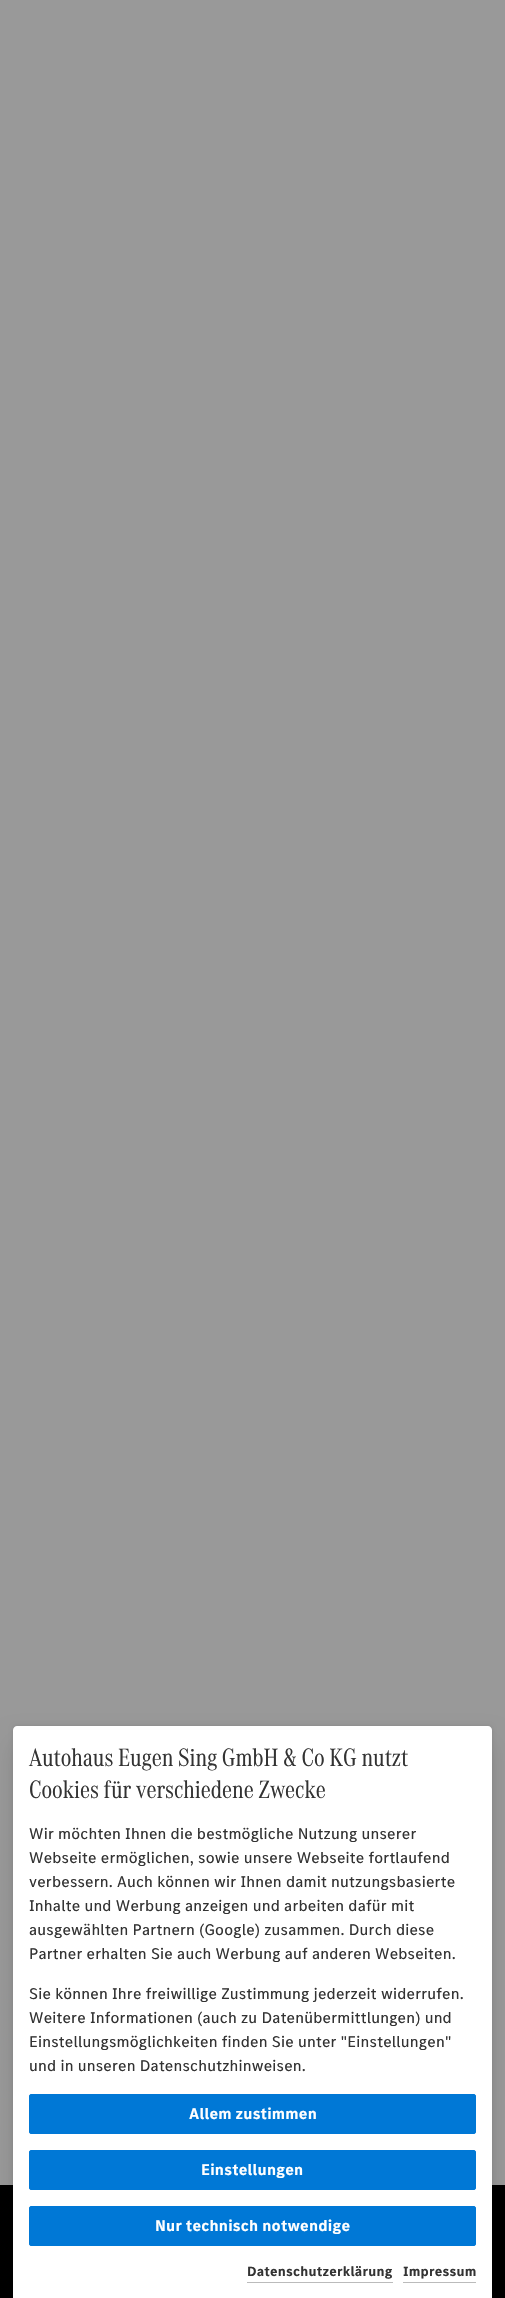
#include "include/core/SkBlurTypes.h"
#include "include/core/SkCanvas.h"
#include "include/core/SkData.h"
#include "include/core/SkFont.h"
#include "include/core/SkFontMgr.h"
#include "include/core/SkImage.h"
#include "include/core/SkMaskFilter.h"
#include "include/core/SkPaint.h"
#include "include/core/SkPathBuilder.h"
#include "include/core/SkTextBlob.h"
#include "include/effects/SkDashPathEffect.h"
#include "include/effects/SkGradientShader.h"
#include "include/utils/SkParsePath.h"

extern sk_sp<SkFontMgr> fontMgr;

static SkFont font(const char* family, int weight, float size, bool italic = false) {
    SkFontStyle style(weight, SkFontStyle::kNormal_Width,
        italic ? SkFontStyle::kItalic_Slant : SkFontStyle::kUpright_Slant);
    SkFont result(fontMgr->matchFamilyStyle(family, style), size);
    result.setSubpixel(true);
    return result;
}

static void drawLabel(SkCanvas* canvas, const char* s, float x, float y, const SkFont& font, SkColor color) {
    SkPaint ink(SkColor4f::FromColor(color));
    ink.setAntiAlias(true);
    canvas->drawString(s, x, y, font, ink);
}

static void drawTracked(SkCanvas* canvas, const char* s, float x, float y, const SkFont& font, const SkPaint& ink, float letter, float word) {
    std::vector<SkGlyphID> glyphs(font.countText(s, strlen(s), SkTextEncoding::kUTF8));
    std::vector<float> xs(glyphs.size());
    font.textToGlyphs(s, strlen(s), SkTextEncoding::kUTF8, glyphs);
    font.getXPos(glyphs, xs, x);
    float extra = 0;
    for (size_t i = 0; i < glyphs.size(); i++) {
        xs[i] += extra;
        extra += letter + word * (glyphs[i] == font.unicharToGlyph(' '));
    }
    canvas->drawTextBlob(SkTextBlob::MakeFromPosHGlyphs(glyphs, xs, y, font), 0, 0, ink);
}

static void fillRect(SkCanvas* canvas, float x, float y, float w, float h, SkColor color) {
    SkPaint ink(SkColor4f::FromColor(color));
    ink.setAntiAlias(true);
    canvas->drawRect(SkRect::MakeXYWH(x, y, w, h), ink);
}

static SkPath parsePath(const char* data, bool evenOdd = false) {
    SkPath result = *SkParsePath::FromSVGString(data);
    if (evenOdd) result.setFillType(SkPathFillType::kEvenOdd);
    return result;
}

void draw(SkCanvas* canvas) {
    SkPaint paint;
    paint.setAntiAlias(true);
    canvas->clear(0xFF999999);
    fillRect(canvas, 0, 2185, 505, 113, 0xFF000000);
    paint.setColor(0x1A000000);
    paint.setMaskFilter(SkMaskFilter::MakeBlur(kNormal_SkBlurStyle, 12));
    canvas->drawRoundRect(SkRect::MakeXYWH(13, 1742, 479, 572), 4, 4, paint);
    paint.setMaskFilter(nullptr);
    paint.setMaskFilter(SkMaskFilter::MakeBlur(kNormal_SkBlurStyle, 2));
    canvas->drawRoundRect(SkRect::MakeXYWH(13, 1726, 479, 572), 4, 4, paint);
    paint.setMaskFilter(nullptr);
    paint.setColor(0xFFFFFFFF);
    canvas->drawPath(parsePath("M17 1726H488C490 1726 492 1728 492 1730V2298H13V1730C13 1728 15 1726 17 1726Z"), paint);
    SkFont font1 = font("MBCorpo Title", 400, 26);
    drawLabel(canvas, "Autohaus Eugen Sing GmbH & Co KG nutzt", 29, 1766, font1, 0xFF333333);
    drawLabel(canvas, "Cookies für verschiedene Zwecke", 29, 1798, font1, 0xFF333333);
    SkFont font2 = font("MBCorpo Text", 400, 16);
    paint.setColor(0xFF333333);
    drawTracked(canvas, "Wir möchten Ihnen die bestmögliche Nutzung unserer", 29, 1839, font2, paint, 0.2f, 0);
    drawTracked(canvas, "Webseite ermöglichen, sowie unsere Webseite fortlaufend", 29, 1863, font2, paint, 0.2f, 0);
    drawTracked(canvas, "verbessern. Auch können wir Ihnen damit nutzungsbasierte", 29, 1887, font2, paint, 0.2f, 0);
    drawTracked(canvas, "Inhalte und Werbung anzeigen und arbeiten dafür mit", 29, 1911, font2, paint, 0.2f, 0);
    drawTracked(canvas, "ausgewählten Partnern (Google) zusammen. Durch diese", 29, 1935, font2, paint, 0.2f, 0);
    drawTracked(canvas, "Partner erhalten Sie auch Werbung auf anderen Webseiten.", 29, 1959, font2, paint, 0.2f, 0);
    drawTracked(canvas, "Sie können Ihre freiwillige Zustimmung jederzeit widerrufen.", 29, 1999, font2, paint, 0.2f, 0);
    drawTracked(canvas, "Weitere Informationen (auch zu Datenübermittlungen) und", 29, 2023, font2, paint, 0.2f, 0);
    drawTracked(canvas, "Einstellungsmöglichkeiten finden Sie unter \"Einstellungen\"", 29, 2047, font2, paint, 0.2f, 0);
    drawTracked(canvas, "und in unseren Datenschutzhinweisen.", 29, 2071, font2, paint, 0.2f, 0);
    paint.setColor(0xFF0078D6);
    canvas->drawRoundRect(SkRect::MakeXYWH(29.5f, 2094.5f, 446, 39), 1.5f, 1.5f, paint);
    paint.setStroke(true);
    paint.setStrokeWidth(1);
    canvas->drawRoundRect(SkRect::MakeXYWH(29.5f, 2094.5f, 446, 39), 1.5f, 1.5f, paint);
    SkFont font3 = font("MBCorpo Text", 700, 16);
    paint.setStroke(false);
    paint.setColor(0xFFFFFFFF);
    drawTracked(canvas, "Allem zustimmen", 189, 2119, font3, paint, 0.2f, 0);
    paint.setColor(0xFF0078D6);
    canvas->drawRoundRect(SkRect::MakeXYWH(29.5f, 2150.5f, 446, 39), 1.5f, 1.5f, paint);
    paint.setStroke(true);
    canvas->drawRoundRect(SkRect::MakeXYWH(29.5f, 2150.5f, 446, 39), 1.5f, 1.5f, paint);
    paint.setStroke(false);
    paint.setColor(0xFFFFFFFF);
    drawTracked(canvas, "Einstellungen", 201, 2175, font3, paint, 0.2f, 0);
    paint.setColor(0xFF0078D6);
    canvas->drawRoundRect(SkRect::MakeXYWH(29.5f, 2206.5f, 446, 39), 1.5f, 1.5f, paint);
    paint.setStroke(true);
    canvas->drawRoundRect(SkRect::MakeXYWH(29.5f, 2206.5f, 446, 39), 1.5f, 1.5f, paint);
    paint.setStroke(false);
    paint.setColor(0xFFFFFFFF);
    drawTracked(canvas, "Nur technisch notwendige", 155, 2231, font3, paint, 0.2f, 0);
    fillRect(canvas, 247, 2282, 146, 1, 0xFFBBBBBB);
    SkFont font4 = font("MBCorpo Text", 700, 14);
    paint.setColor(0xFF333333);
    drawTracked(canvas, "Datenschutzerklärung", 247, 2276, font4, paint, 0.2f, 0);
    fillRect(canvas, 403, 2282, 73, 1, 0xFFBBBBBB);
    drawTracked(canvas, "Impressum", 403, 2276, font4, paint, 0.2f, 0);
}
